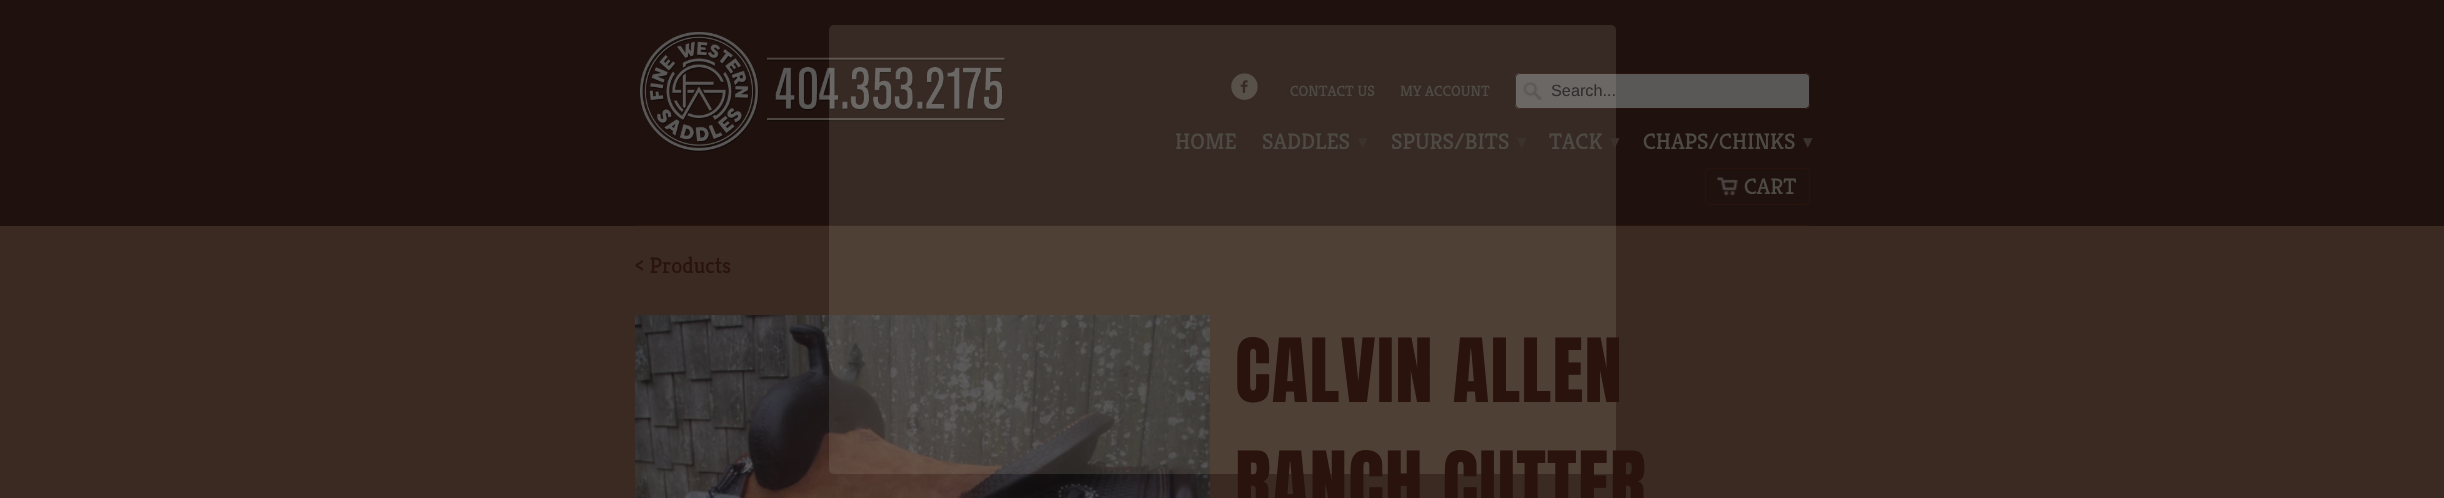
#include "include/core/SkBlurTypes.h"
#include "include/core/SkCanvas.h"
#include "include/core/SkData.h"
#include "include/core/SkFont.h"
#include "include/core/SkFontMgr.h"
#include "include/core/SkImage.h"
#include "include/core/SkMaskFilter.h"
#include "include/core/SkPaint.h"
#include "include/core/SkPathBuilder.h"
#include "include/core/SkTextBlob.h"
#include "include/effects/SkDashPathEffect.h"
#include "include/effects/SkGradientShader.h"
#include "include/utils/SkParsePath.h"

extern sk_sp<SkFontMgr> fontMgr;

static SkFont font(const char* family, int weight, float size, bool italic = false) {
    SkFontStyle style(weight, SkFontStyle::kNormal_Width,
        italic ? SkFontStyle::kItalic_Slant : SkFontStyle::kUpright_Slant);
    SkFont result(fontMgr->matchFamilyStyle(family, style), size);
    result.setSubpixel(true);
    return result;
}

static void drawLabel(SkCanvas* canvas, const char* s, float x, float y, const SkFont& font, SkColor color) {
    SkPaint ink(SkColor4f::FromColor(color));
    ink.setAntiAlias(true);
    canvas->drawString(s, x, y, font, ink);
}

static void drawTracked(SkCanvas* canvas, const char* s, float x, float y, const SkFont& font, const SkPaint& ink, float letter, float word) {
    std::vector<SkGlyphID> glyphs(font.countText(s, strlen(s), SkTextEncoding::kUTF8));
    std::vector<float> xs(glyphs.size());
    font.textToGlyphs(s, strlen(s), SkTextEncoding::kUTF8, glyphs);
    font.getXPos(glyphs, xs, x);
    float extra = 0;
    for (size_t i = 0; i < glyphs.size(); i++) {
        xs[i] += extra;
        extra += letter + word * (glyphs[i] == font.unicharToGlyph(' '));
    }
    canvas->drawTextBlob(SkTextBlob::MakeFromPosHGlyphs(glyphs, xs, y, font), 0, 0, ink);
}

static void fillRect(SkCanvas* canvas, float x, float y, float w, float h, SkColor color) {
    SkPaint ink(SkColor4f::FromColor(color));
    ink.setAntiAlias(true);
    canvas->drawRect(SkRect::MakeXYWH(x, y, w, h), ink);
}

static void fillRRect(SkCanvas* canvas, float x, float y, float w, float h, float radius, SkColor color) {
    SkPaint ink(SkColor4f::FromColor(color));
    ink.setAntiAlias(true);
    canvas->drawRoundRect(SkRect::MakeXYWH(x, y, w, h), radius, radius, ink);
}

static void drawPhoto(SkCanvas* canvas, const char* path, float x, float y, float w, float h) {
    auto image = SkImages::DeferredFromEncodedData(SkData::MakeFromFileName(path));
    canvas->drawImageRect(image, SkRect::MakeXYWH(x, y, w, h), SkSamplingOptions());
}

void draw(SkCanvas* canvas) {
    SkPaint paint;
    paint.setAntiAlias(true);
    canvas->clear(0xFF3A2A21);
    fillRect(canvas, 0, 0, 2444, 226, 0xFF1F110D);
    fillRect(canvas, 635, 225, 1175, 1, 0xFF29130C);
    drawPhoto(canvas, "assets/img1.png", 640, 32, 366, 121);
    drawPhoto(canvas, "assets/img2.png", 1231, 73, 27, 27);
    fillRRect(canvas, 1515, 73, 295, 36, 5, 0xFF5A5757);
    drawPhoto(canvas, "assets/img3.png", 1523, 82, 19, 18);
    paint.setStroke(true);
    paint.setStrokeWidth(1);
    paint.setColor(0xFF29130C);
    canvas->drawRoundRect(SkRect::MakeXYWH(1515.5f, 73.5f, 294, 35), 4.5f, 4.5f, paint);
    drawPhoto(canvas, "assets/img5.png", 635, 315, 575, 183);
    fillRRect(canvas, 829, 25, 787, 449, 5, 0x21D5D0BD);
    SkFont font1 = font("Kreon", 400, 15);
    drawLabel(canvas, "CONTACT US", 1290, 96, font1, 0xFF4D4943);
    drawLabel(canvas, "MY ACCOUNT", 1400, 96, font1, 0xFF4D4943);
    SkFont font2 = font("Liberation Sans", 400, 16.25f);
    drawLabel(canvas, "Search...", 1551, 96, font2, 0xFF2F2D2D);
    SkFont font3 = font("Kreon", 400, 22.5f);
    drawLabel(canvas, "HOME", 1175, 149, font3, 0xFF4D4943);
    drawLabel(canvas, "SADDLES", 1262, 149, font3, 0xFF4D4943);
    SkFont font4 = font("DejaVu Sans", 400, 19);
    drawLabel(canvas, "▾", 1358, 148, font4, 0xFF3B322D);
    drawLabel(canvas, "SPURS/BITS", 1391, 149, font3, 0xFF4D4943);
    drawLabel(canvas, "▾", 1517, 148, font4, 0xFF3B322D);
    drawLabel(canvas, "TACK", 1549, 149, font3, 0xFF4D4943);
    drawLabel(canvas, "▾", 1610, 148, font4, 0xFF3B322D);
    drawLabel(canvas, "CHAPS/CHINKS", 1643, 149, font3, 0xFF4D4943);
    drawLabel(canvas, "▾", 1803, 148, font4, 0xFF3B322D);
    drawPhoto(canvas, "assets/img4.png", 1717, 177, 21, 19);
    canvas->drawRoundRect(SkRect::MakeXYWH(1705.5f, 168.5f, 104, 36), 4.5f, 4.5f, paint);
    drawLabel(canvas, "CART", 1744, 194, font3, 0xFF4D4943);
    drawLabel(canvas, "< Products", 635, 273, font3, 0xFF29130C);
    SkFont font5 = font("Anton", 400, 75);
    paint.setStroke(false);
    drawTracked(canvas, "CALVIN ALLEN", 1235, 402, font5, paint, 1.25f, 0);
    drawTracked(canvas, "RANCH CUTTER", 1235, 515, font5, paint, 1.25f, 0);
}
